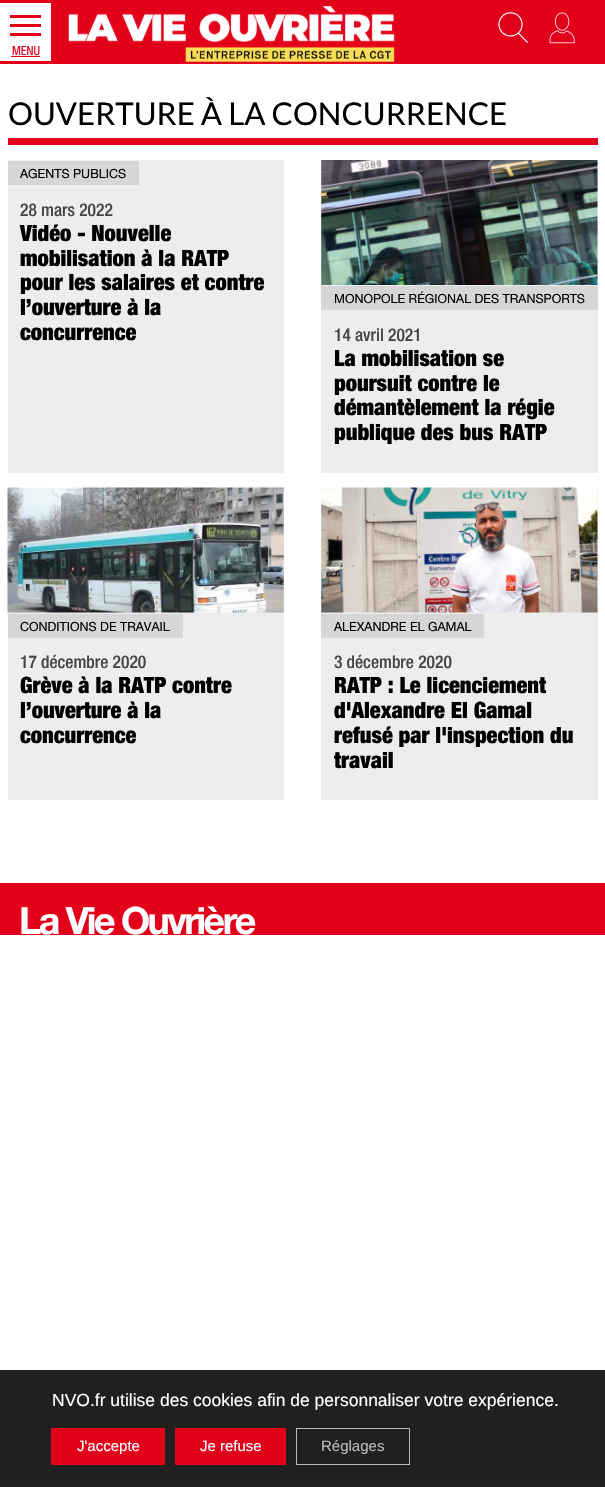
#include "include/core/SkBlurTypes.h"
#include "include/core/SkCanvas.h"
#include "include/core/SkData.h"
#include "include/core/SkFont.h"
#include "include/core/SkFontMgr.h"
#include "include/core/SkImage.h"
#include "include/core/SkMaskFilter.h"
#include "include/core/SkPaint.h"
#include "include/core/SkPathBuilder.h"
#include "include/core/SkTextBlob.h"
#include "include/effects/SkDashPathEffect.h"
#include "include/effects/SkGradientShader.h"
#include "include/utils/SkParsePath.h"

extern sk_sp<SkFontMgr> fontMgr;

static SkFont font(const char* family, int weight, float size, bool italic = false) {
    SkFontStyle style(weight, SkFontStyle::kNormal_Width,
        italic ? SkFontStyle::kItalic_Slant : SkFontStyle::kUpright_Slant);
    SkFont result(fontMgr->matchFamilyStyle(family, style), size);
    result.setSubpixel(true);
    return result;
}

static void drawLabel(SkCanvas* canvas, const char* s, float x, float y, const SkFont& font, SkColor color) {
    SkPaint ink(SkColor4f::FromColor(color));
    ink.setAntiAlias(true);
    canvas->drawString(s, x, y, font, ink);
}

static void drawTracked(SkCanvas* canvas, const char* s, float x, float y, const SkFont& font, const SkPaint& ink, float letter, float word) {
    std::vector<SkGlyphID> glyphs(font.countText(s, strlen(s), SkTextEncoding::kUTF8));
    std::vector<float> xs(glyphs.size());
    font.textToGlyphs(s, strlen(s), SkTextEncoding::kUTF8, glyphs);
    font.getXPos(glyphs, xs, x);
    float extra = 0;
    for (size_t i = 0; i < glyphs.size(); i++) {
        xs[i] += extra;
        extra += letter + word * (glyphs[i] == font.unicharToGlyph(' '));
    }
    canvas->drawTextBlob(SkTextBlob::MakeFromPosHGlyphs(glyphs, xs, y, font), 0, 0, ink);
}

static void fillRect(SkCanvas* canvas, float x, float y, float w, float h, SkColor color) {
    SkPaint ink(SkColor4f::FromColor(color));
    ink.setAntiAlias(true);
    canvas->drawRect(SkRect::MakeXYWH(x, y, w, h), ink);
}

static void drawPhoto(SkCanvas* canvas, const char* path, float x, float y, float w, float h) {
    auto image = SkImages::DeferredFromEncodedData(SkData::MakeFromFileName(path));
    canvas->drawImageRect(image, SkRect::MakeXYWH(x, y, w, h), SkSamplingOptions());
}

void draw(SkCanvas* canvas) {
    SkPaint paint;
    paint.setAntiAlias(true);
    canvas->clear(0xFFFFFFFF);
    fillRect(canvas, 51, 0, 554, 64, 0xFFE2001A);
    fillRect(canvas, 0, 0, 51, 3, 0xFFE2001A);
    fillRect(canvas, 0, 61, 51, 3, 0xFFE2001A);
    fillRect(canvas, 10, 15, 31, 3, 0xFFE2001A);
    fillRect(canvas, 10, 24, 31, 3, 0xFFE2001A);
    fillRect(canvas, 10, 33, 31, 3, 0xFFE2001A);
    SkFont font1 = font("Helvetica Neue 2", 400, 12.5f);
    drawLabel(canvas, "MENU", 12, 55, font1, 0xFFE2001A);
    fillRect(canvas, 11, 56, 29, 1, 0xFFE2001A);
    drawPhoto(canvas, "assets/img1.png", 68, 5, 328, 57);
    drawPhoto(canvas, "assets/img2.png", 498, 12, 30, 31);
    drawPhoto(canvas, "assets/img3.png", 549, 12, 26, 32);
    fillRect(canvas, 8, 138, 590, 7, 0xFFE2001A);
    SkFont font2 = font("Lato", 400, 31.25f);
    drawLabel(canvas, "OUVERTURE À LA CONCURRENCE", 8, 125, font2, 0xFF000000);
    fillRect(canvas, 8, 160, 276, 313, 0xFFEEEDED);
    fillRect(canvas, 8, 161, 131, 24, 0xFFD6D6D6);
    SkFont font3 = font("Helvetica Neue", 400, 12.5f);
    drawLabel(canvas, "AGENTS PUBLICS", 20, 178, font3, 0xFF000000);
    SkFont font4 = font("Helvetica Neue", 500, 17.5f);
    drawLabel(canvas, "28 mars 2022", 20, 216, font4, 0xFF474545);
    SkFont font5 = font("Helvetica Neue", 900, 22.5f);
    drawLabel(canvas, "Vidéo - Nouvelle", 20, 241, font5, 0xFF000000);
    drawLabel(canvas, "mobilisation à la RATP", 20, 266, font5, 0xFF000000);
    drawLabel(canvas, "pour les salaires et contre", 20, 290, font5, 0xFF000000);
    drawLabel(canvas, "l’ouverture à la", 20, 315, font5, 0xFF000000);
    drawLabel(canvas, "concurrence", 20, 340, font5, 0xFF000000);
    fillRect(canvas, 321, 160, 277, 313, 0xFFEEEDED);
    drawPhoto(canvas, "assets/img4.png", 321, 160, 277, 125);
    fillRect(canvas, 321, 286, 277, 24, 0xFFD6D6D6);
    drawLabel(canvas, "MONOPOLE RÉGIONAL DES TRANSPORTS", 334, 303, font3, 0xFF000000);
    drawLabel(canvas, "14 avril 2021", 334, 341, font4, 0xFF474545);
    drawLabel(canvas, "La mobilisation se", 334, 366, font5, 0xFF000000);
    drawLabel(canvas, "poursuit contre le", 334, 391, font5, 0xFF000000);
    drawLabel(canvas, "démantèlement la régie", 334, 415, font5, 0xFF000000);
    drawLabel(canvas, "publique des bus RATP", 334, 440, font5, 0xFF000000);
    fillRect(canvas, 8, 488, 276, 312, 0xFFEEEDED);
    drawPhoto(canvas, "assets/img5.png", 7, 487, 277, 126);
    fillRect(canvas, 8, 614, 175, 24, 0xFFD6D6D6);
    drawLabel(canvas, "CONDITIONS DE TRAVAIL", 20, 631, font3, 0xFF000000);
    drawLabel(canvas, "17 décembre 2020", 20, 668, font4, 0xFF474545);
    drawLabel(canvas, "Grève à la RATP contre", 20, 693, font5, 0xFF000000);
    drawLabel(canvas, "l’ouverture à la", 20, 718, font5, 0xFF000000);
    drawLabel(canvas, "concurrence", 20, 743, font5, 0xFF000000);
    fillRect(canvas, 321, 488, 277, 312, 0xFFEEEDED);
    drawPhoto(canvas, "assets/img6.png", 321, 487, 277, 126);
    fillRect(canvas, 321, 614, 163, 24, 0xFFD6D6D6);
    drawLabel(canvas, "ALEXANDRE EL GAMAL", 334, 631, font3, 0xFF000000);
    drawLabel(canvas, "3 décembre 2020", 334, 668, font4, 0xFF474545);
    drawLabel(canvas, "RATP : Le licenciement", 334, 693, font5, 0xFF000000);
    drawLabel(canvas, "d'Alexandre El Gamal", 334, 718, font5, 0xFF000000);
    drawLabel(canvas, "refusé par l'inspection du", 334, 743, font5, 0xFF000000);
    drawLabel(canvas, "travail", 334, 768, font5, 0xFF000000);
    fillRect(canvas, 0, 883, 605, 52, 0xFFE2001A);
    SkFont font6 = font("Helvetica Neue", 700, 37.5f);
    paint.setColor(0xFFFFFFFF);
    drawTracked(canvas, "La Vie Ouvrière", 19, 934, font6, paint, -2.5f, 0);
    fillRect(canvas, 0, 1370, 605, 117, 0xFF202020);
    SkFont font7 = font("Liberation Sans", 400, 17.5f);
    drawLabel(canvas, "NVO.fr utilise des cookies afin de personnaliser votre expérience.", 52, 1406, font7, 0xFFFFFFFF);
    fillRect(canvas, 51, 1428, 114, 37, 0xFFE2001A);
    SkFont font8 = font("Liberation Sans", 400, 15);
    drawLabel(canvas, "J'accepte", 77, 1451, font8, 0xFFFFFFFF);
    fillRect(canvas, 175, 1428, 111, 37, 0xFFE2001A);
    drawLabel(canvas, "Je refuse", 200, 1451, font8, 0xFFFFFFFF);
    paint.setStroke(true);
    paint.setStrokeWidth(1);
    paint.setColor(0xFFBCBCBC);
    canvas->drawRect(SkRect::MakeXYWH(296.5f, 1428.5f, 113, 36), paint);
    drawLabel(canvas, "Réglages", 321, 1451, font8, 0xFFBCBCBC);
}
